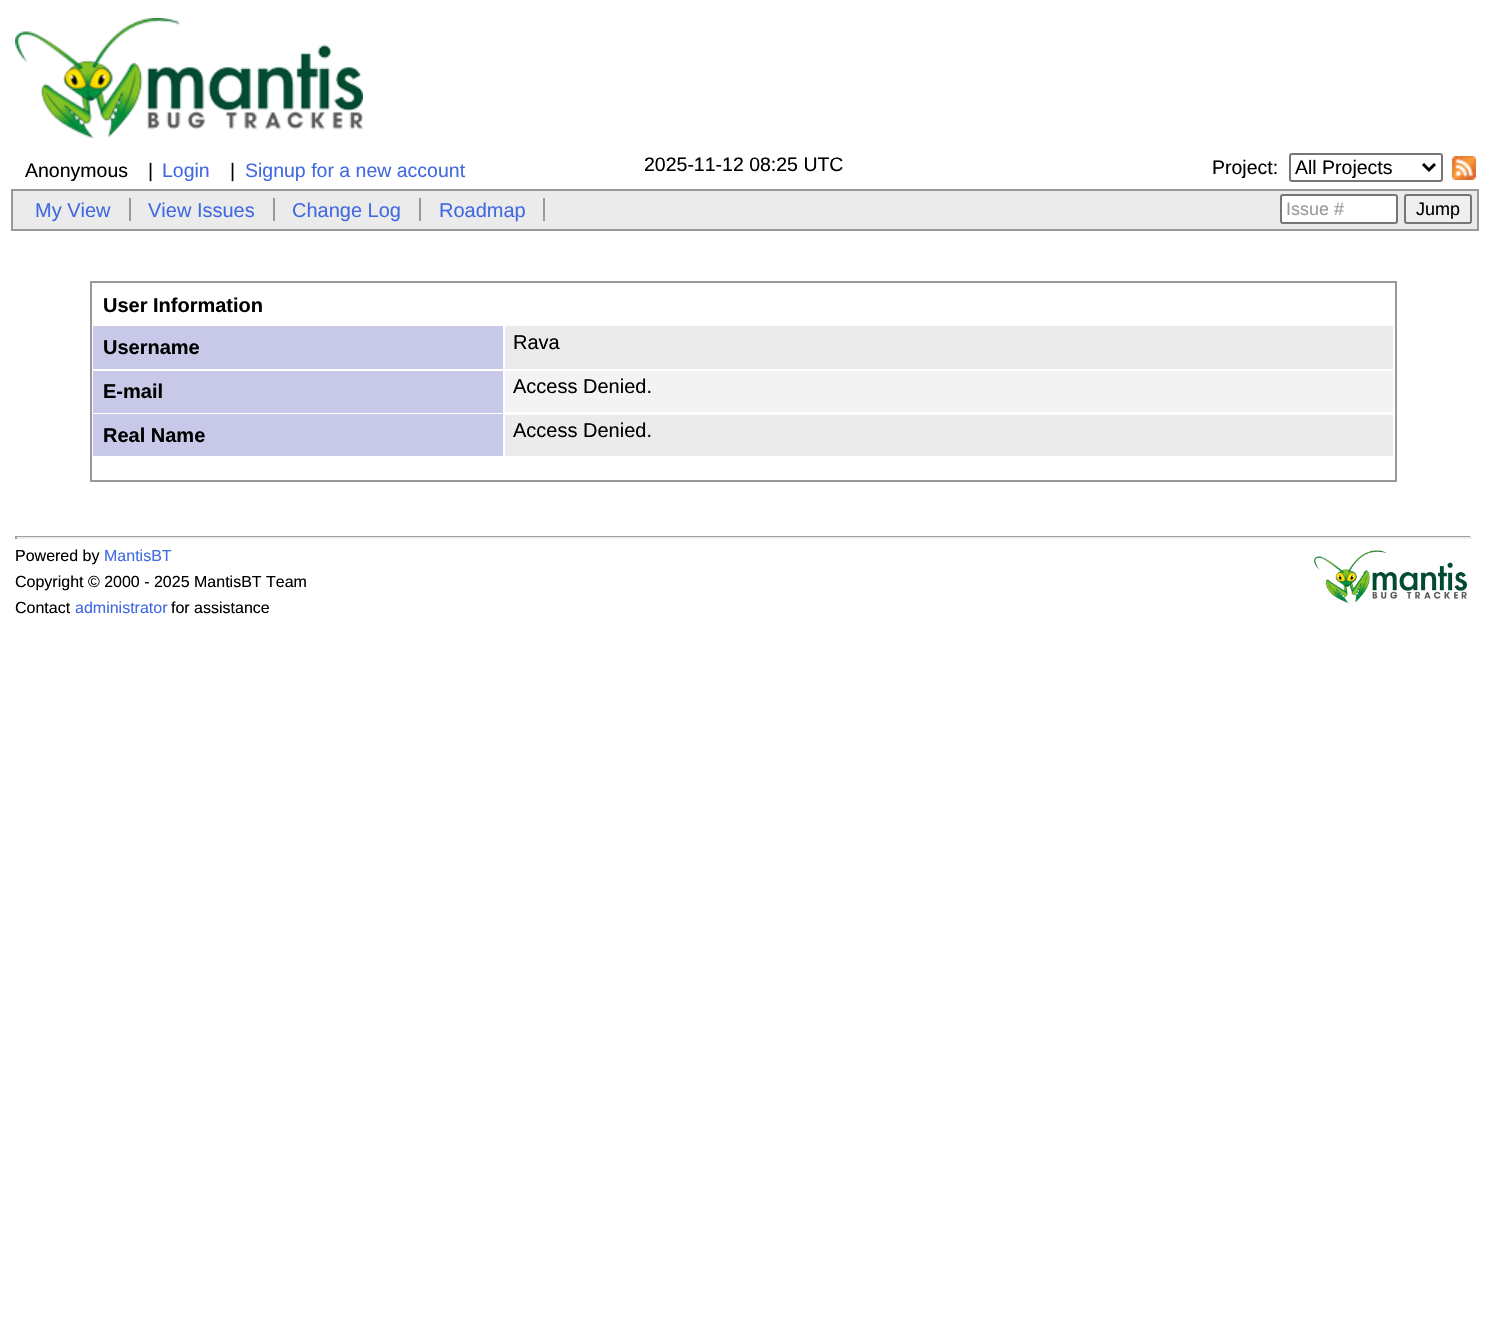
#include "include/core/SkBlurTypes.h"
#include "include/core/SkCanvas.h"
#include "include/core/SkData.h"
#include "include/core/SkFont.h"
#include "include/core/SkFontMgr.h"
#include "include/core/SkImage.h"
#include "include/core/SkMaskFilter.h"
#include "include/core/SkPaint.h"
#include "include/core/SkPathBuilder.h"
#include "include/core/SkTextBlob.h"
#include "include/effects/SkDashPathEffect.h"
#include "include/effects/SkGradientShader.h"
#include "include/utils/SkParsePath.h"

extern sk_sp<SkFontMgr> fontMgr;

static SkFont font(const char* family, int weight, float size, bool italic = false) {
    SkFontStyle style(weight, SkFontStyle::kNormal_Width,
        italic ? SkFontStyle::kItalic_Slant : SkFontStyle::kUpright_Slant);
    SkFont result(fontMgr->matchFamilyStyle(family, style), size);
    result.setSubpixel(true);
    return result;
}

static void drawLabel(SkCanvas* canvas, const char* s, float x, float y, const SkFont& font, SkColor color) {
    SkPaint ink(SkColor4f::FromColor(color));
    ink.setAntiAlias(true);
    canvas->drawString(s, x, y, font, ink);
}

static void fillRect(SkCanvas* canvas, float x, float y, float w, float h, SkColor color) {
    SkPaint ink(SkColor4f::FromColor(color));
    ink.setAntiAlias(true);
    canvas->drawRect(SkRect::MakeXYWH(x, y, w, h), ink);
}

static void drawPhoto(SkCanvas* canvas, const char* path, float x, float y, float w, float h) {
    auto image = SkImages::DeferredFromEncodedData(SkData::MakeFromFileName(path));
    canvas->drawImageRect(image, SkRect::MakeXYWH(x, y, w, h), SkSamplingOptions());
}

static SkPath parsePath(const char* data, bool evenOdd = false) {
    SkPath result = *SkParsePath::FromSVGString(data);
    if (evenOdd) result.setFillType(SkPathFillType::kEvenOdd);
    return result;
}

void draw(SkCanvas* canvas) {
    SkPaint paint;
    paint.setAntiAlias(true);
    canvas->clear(0xFFFFFFFF);
    drawPhoto(canvas, "assets/img1.png", 15, 18, 348, 120);
    SkFont font1 = font("Liberation Sans", 400, 19.5f);
    drawLabel(canvas, "Anonymous", 25, 177, font1, 0xFF000000);
    drawLabel(canvas, "|", 148, 177, font1, 0xFF000000);
    drawLabel(canvas, "Login", 162, 177, font1, 0xFF4169E1);
    drawLabel(canvas, "|", 230, 177, font1, 0xFF000000);
    drawLabel(canvas, "Signup for a new account", 245, 177, font1, 0xFF4169E1);
    drawLabel(canvas, "2025-11-12 08:25 UTC", 644, 171, font1, 0xFF000000);
    drawLabel(canvas, "Project:", 1212, 174, font1, 0xFF000000);
    paint.setStroke(true);
    paint.setStrokeWidth(2);
    paint.setColor(0xFF767676);
    canvas->drawRoundRect(SkRect::MakeXYWH(1290, 154, 152, 27), 2, 2, paint);
    paint.setStrokeWidth(3);
    paint.setColor(0xFF000000);
    canvas->drawPath(parsePath("M1423 164L1429 170L1435 164"), paint);
    drawLabel(canvas, "All Projects", 1295, 174, font1, 0xFF000000);
    drawPhoto(canvas, "assets/img2.png", 1452, 156, 24, 24);
    paint.setStroke(false);
    paint.setColor(0xFFEBEBEB);
    canvas->drawRect(SkRect::MakeXYWH(12, 190, 1466, 40), paint);
    paint.setStroke(true);
    paint.setStrokeWidth(2);
    paint.setColor(0xFF999999);
    canvas->drawRect(SkRect::MakeXYWH(12, 190, 1466, 40), paint);
    SkFont font2 = font("Liberation Sans", 400, 20);
    drawLabel(canvas, "My View", 35, 217, font2, 0xFF4169E1);
    fillRect(canvas, 129, 198, 2, 23, 0xFF999999);
    drawLabel(canvas, "View Issues", 148, 217, font2, 0xFF4169E1);
    fillRect(canvas, 273, 198, 2, 23, 0xFF999999);
    drawLabel(canvas, "Change Log", 292, 217, font2, 0xFF4169E1);
    fillRect(canvas, 419, 198, 2, 23, 0xFF999999);
    drawLabel(canvas, "Roadmap", 439, 217, font2, 0xFF4169E1);
    fillRect(canvas, 543, 198, 2, 23, 0xFF999999);
    paint.setStroke(false);
    paint.setColor(0xFFFFFFFF);
    canvas->drawRoundRect(SkRect::MakeXYWH(1281, 195, 116, 28), 2, 2, paint);
    paint.setStroke(true);
    paint.setColor(0xFF767676);
    canvas->drawRoundRect(SkRect::MakeXYWH(1281, 195, 116, 28), 2, 2, paint);
    SkFont font3 = font("Liberation Sans", 400, 18);
    drawLabel(canvas, "Issue #", 1286, 215, font3, 0xFF999999);
    paint.setStroke(false);
    paint.setColor(0xFFEFEFEF);
    canvas->drawRoundRect(SkRect::MakeXYWH(1405, 195, 66, 28), 2, 2, paint);
    paint.setStroke(true);
    paint.setColor(0xFF767676);
    canvas->drawRoundRect(SkRect::MakeXYWH(1405, 195, 66, 28), 2, 2, paint);
    drawLabel(canvas, "Jump", 1416, 215, font3, 0xFF000000);
    paint.setColor(0xFF999999);
    canvas->drawRect(SkRect::MakeXYWH(91, 282, 1305, 199), paint);
    SkFont font4 = font("Liberation Sans", 700, 20);
    drawLabel(canvas, "User Information", 103, 312, font4, 0xFF000000);
    fillRect(canvas, 505, 326, 888, 43, 0xFFEBEBEB);
    fillRect(canvas, 93, 326, 410, 43, 0xFFC8C8E8);
    drawLabel(canvas, "Rava", 513, 349, font2, 0xFF000000);
    drawLabel(canvas, "Username", 103, 354, font4, 0xFF000000);
    fillRect(canvas, 505, 371, 888, 41, 0xFFF3F3F3);
    fillRect(canvas, 93, 371, 410, 42, 0xFFC8C8E8);
    drawLabel(canvas, "Access Denied.", 513, 393, font2, 0xFF000000);
    drawLabel(canvas, "E-mail", 103, 398, font4, 0xFF000000);
    fillRect(canvas, 505, 415, 888, 41, 0xFFEBEBEB);
    fillRect(canvas, 93, 414, 410, 42, 0xFFC8C8E8);
    drawLabel(canvas, "Access Denied.", 513, 437, font2, 0xFF000000);
    drawLabel(canvas, "Real Name", 103, 442, font4, 0xFF000000);
    fillRect(canvas, 15, 536, 1457, 1, 0xFF9F9F9F);
    fillRect(canvas, 1470, 536, 2, 3, 0xFFEEEEEE);
    fillRect(canvas, 15, 537, 1457, 2, 0xFFEEEEEE);
    fillRect(canvas, 15, 536, 2, 3, 0xFF9F9F9F);
    SkFont font5 = font("Liberation Sans", 400, 16);
    drawLabel(canvas, "Powered by", 15, 561, font5, 0xFF000000);
    drawLabel(canvas, "MantisBT", 104, 561, font5, 0xFF4169E1);
    drawLabel(canvas, "Copyright © 2000 - 2025 MantisBT Team", 15, 587, font5, 0xFF000000);
    drawPhoto(canvas, "assets/img3.png", 1314, 550, 153, 53);
    drawLabel(canvas, "Contact", 15, 613, font5, 0xFF000000);
    drawLabel(canvas, "administrator", 75, 613, font5, 0xFF4169E1);
    drawLabel(canvas, "for assistance", 171, 613, font5, 0xFF000000);
}
